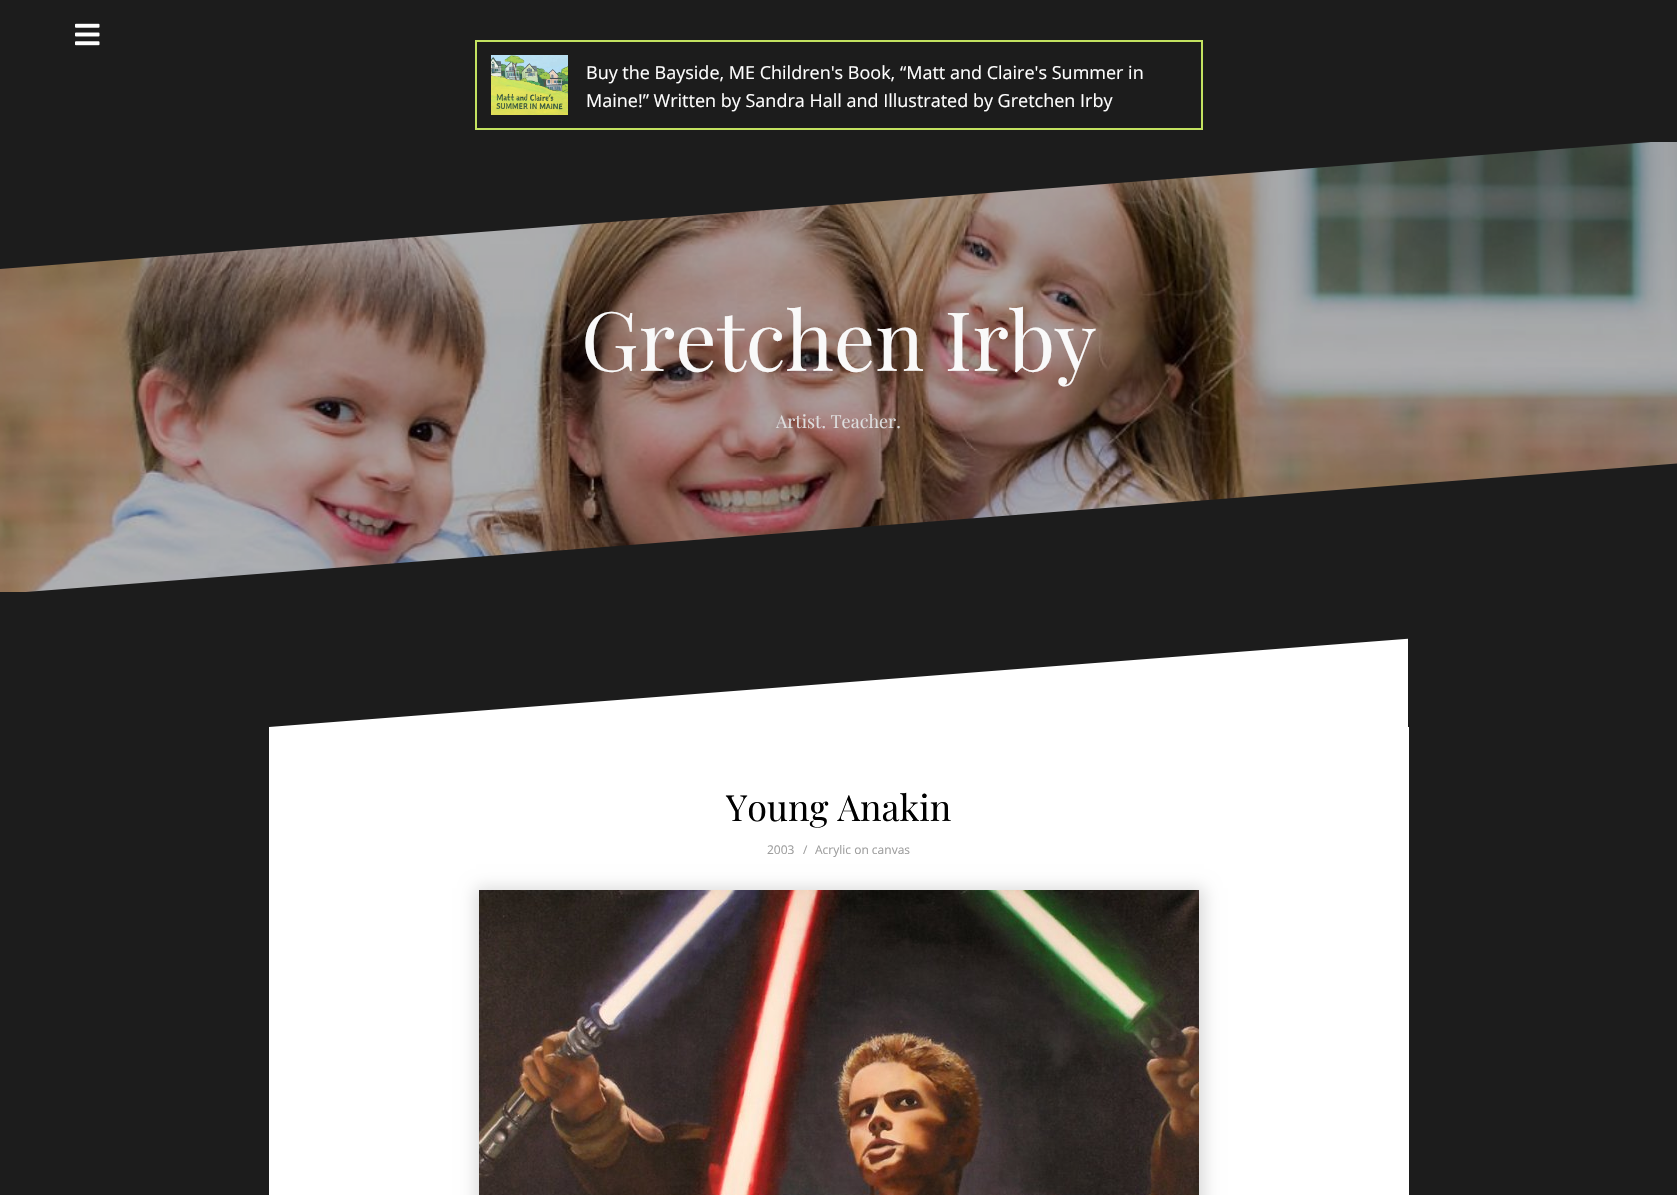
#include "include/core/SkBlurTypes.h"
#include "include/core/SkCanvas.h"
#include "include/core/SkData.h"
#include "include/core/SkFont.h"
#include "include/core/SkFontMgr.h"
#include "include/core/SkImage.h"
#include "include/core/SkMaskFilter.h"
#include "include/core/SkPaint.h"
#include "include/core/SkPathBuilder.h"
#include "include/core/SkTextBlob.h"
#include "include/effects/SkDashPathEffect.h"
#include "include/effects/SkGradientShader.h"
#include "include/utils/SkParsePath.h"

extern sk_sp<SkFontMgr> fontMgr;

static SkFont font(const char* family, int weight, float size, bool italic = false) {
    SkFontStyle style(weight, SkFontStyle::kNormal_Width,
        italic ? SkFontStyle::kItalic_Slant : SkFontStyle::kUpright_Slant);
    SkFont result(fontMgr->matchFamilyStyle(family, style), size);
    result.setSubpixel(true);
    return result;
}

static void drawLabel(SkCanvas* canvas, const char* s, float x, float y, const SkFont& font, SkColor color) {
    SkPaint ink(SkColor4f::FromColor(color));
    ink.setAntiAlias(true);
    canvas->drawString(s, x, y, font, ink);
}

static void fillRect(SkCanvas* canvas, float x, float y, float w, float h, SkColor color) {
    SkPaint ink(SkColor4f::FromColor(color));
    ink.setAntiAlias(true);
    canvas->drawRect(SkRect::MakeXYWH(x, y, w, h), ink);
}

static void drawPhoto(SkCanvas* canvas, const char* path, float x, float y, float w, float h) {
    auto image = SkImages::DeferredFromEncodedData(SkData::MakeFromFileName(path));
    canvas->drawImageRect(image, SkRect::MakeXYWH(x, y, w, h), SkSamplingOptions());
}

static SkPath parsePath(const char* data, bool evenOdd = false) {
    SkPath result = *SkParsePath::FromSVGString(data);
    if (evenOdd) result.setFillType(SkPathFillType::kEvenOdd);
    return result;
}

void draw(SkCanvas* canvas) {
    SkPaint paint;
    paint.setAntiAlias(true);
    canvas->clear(0xFF1C1C1C);
    drawPhoto(canvas, "assets/img1.png", 75, 23, 25, 23);
    paint.setStroke(true);
    paint.setStrokeWidth(2);
    paint.setColor(0xFFC3E260);
    canvas->drawRect(SkRect::MakeXYWH(476, 41, 726, 88), paint);
    drawPhoto(canvas, "assets/img2.png", 491, 55, 77, 60);
    SkFont font1 = font("Open Sans", 400, 18);
    drawLabel(canvas, "Buy the Bayside, ME Children's Book, “Matt and Claire's Summer in", 586, 79, font1, 0xFFFFFFFF);
    drawLabel(canvas, "Maine!” Written by Sandra Hall and Illustrated by Gretchen Irby", 586, 107, font1, 0xFFFFFFFF);
    drawPhoto(canvas, "assets/img3.png", 0, 142, 1677, 450);
    paint.setStroke(false);
    paint.setColor(0xFF1C1C1C);
    canvas->drawPath(parsePath("M0 269V140H1677"), paint);
    SkFont font2 = font("Playfair Display", 400, 82);
    drawLabel(canvas, "Gretchen Irby", 581, 371, font2, 0xFFF9F9F9);
    SkFont font3 = font("Playfair Display", 400, 18);
    drawLabel(canvas, "Artist. Teacher.", 776, 428, font3, 0xFFDDDDDD);
    canvas->drawPath(parsePath("M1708 461V594H0"), paint);
    canvas->save();
    canvas->clipRect(SkRect::MakeXYWH(269, 637, 1139, 91));
    paint.setColor(0xFFFFFFFF);
    canvas->drawPath(parsePath("M1430 637V727H269"), paint);
    canvas->restore();
    fillRect(canvas, 269, 727, 1140, 468, 0xFFFFFFFF);
    SkFont font4 = font("Playfair Display", 400, 36);
    drawLabel(canvas, "Young Anakin", 726, 821, font4, 0xFF000000);
    SkFont font5 = font("Open Sans", 400, 12);
    drawLabel(canvas, "2003", 767, 854, font5, 0xFF9D9D9D);
    drawLabel(canvas, "/", 803, 854, font5, 0xFF9D9D9D);
    drawLabel(canvas, "Acrylic on canvas", 815, 854, font5, 0xFF9D9D9D);
    paint.setColor(0x26000000);
    paint.setMaskFilter(SkMaskFilter::MakeBlur(kNormal_SkBlurStyle, 8));
    canvas->drawRect(SkRect::MakeXYWH(476, 888, 728, 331), paint);
    paint.setMaskFilter(nullptr);
    drawPhoto(canvas, "assets/img4.png", 479, 890, 720, 305);
}
